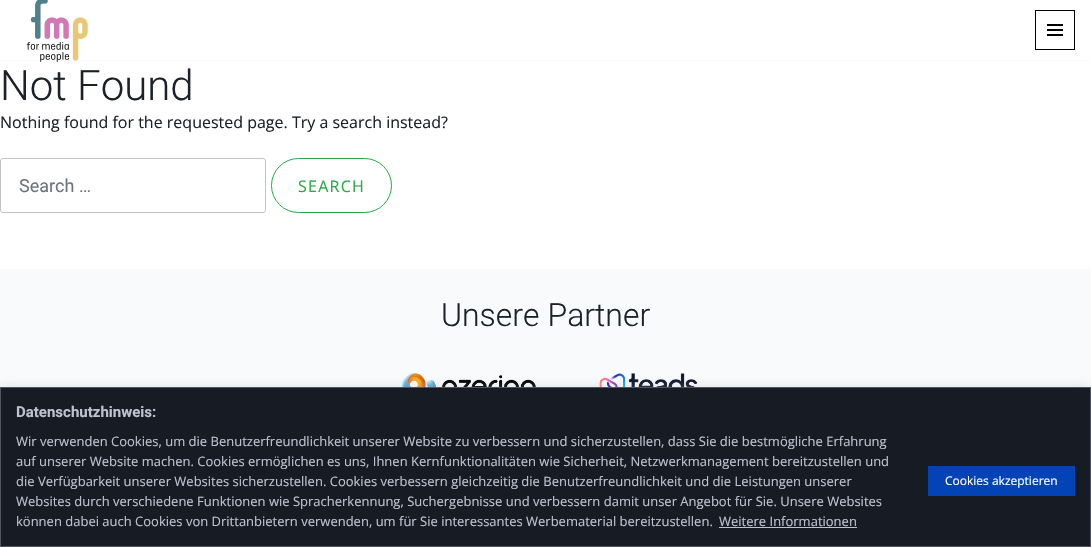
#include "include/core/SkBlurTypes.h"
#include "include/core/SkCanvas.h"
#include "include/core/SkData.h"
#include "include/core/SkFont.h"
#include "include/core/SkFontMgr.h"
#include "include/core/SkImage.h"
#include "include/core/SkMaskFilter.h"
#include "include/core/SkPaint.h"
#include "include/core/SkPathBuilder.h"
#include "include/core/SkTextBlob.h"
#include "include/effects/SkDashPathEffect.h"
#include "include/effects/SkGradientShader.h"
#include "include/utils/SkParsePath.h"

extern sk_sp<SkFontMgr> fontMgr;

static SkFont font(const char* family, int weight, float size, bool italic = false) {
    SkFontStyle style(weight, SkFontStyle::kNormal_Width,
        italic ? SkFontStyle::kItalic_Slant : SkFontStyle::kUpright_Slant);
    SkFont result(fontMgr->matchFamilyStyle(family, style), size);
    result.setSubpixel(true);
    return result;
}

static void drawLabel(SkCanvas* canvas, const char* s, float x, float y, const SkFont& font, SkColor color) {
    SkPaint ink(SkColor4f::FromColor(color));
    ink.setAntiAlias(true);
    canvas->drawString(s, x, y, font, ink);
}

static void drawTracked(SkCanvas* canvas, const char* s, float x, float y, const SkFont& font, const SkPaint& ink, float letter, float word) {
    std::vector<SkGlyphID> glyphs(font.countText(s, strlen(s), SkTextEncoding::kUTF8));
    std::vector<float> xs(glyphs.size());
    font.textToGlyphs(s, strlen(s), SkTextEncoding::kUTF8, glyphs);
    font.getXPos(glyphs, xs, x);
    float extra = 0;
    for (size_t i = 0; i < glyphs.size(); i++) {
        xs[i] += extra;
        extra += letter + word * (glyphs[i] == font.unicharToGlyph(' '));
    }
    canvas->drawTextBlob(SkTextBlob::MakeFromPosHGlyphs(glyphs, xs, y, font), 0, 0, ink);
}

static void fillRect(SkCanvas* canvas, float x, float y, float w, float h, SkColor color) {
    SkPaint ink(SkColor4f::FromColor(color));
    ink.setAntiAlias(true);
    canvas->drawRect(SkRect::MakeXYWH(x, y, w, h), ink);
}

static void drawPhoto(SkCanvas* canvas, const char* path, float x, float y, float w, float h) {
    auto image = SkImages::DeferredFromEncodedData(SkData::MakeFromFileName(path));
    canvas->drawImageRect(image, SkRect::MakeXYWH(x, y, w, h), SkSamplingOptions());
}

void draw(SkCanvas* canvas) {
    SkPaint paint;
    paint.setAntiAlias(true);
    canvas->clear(0xFFFFFFFF);
    fillRect(canvas, 0, 60, 1091, 1, 0xFFF9FAFB);
    drawPhoto(canvas, "assets/img1.png", 26, 0, 62, 62);
    paint.setStroke(true);
    paint.setStrokeWidth(1);
    paint.setColor(0xFF000000);
    canvas->drawRect(SkRect::MakeXYWH(1035.5f, 10.5f, 39, 39), paint);
    fillRect(canvas, 1047, 24, 16, 2, 0xFF000000);
    fillRect(canvas, 1047, 29, 16, 2, 0xFF000000);
    fillRect(canvas, 1047, 34, 16, 2, 0xFF000000);
    SkFont font1 = font("Roboto", 300, 42);
    drawLabel(canvas, "Not Found", 0, 100, font1, 0xFF1B2029);
    SkFont font2 = font("Open Sans", 400, 16);
    drawLabel(canvas, "Nothing found for the requested page. Try a search instead?", 0, 128, font2, 0xFF1B2029);
    paint.setColor(0xFFC2C2C2);
    canvas->drawRoundRect(SkRect::MakeXYWH(0.5f, 158.5f, 265, 54), 2.5f, 2.5f, paint);
    SkFont font3 = font("Roboto", 400, 18);
    drawLabel(canvas, "Search …", 19, 192, font3, 0xFF6C757D);
    paint.setColor(0xFF28A745);
    canvas->drawRoundRect(SkRect::MakeXYWH(271.5f, 158.5f, 120, 54), 27, 27, paint);
    paint.setStroke(false);
    drawTracked(canvas, "SEARCH", 298, 192, font2, paint, 1.25f, 0);
    fillRect(canvas, 0, 269, 1091, 118, 0xFFF9FAFB);
    SkFont font4 = font("Roboto", 300, 32);
    drawLabel(canvas, "Unsere Partner", 441, 326, font4, 0xFF1B2029);
    drawPhoto(canvas, "assets/img2.png", 402, 373, 134, 14);
    drawPhoto(canvas, "assets/img3.png", 599, 373, 99, 14);
    paint.setColor(0x4DACABAB);
    paint.setMaskFilter(SkMaskFilter::MakeBlur(kNormal_SkBlurStyle, 5));
    canvas->drawRect(SkRect::MakeXYWH(0, 386, 1091, 160), paint);
    paint.setMaskFilter(nullptr);
    paint.setColor(0xFF171B23);
    canvas->drawRect(SkRect::MakeXYWH(0.5f, 387.5f, 1090, 159), paint);
    paint.setStroke(true);
    paint.setColor(0xFF4F5461);
    canvas->drawRect(SkRect::MakeXYWH(0.5f, 387.5f, 1090, 159), paint);
    SkFont font5 = font("Roboto", 700, 15);
    drawLabel(canvas, "Datenschutzhinweis:", 16, 417, font5, 0xFFBDC2D0);
    SkFont font6 = font("Open Sans", 400, 13);
    drawLabel(canvas, "Wir verwenden Cookies, um die Benutzerfreundlichkeit unserer Website zu verbessern und sicherzustellen, dass Sie die bestmögliche Erfahrung", 16, 446, font6, 0xFFBDC2D0);
    drawLabel(canvas, "auf unserer Website machen. Cookies ermöglichen es uns, Ihnen Kernfunktionalitäten wie Sicherheit, Netzwerkmanagement bereitzustellen und", 16, 466, font6, 0xFFBDC2D0);
    drawLabel(canvas, "die Verfügbarkeit unserer Websites sicherzustellen. Cookies verbessern gleichzeitig die Benutzerfreundlichkeit und die Leistungen unserer", 16, 486, font6, 0xFFBDC2D0);
    drawLabel(canvas, "Websites durch verschiedene Funktionen wie Spracherkennung, Suchergebnisse und verbessern damit unser Angebot für Sie. Unsere Websites", 16, 506, font6, 0xFFBDC2D0);
    drawLabel(canvas, "können dabei auch Cookies von Drittanbietern verwenden, um für Sie interessantes Werbematerial bereitzustellen.", 16, 526, font6, 0xFFBDC2D0);
    drawLabel(canvas, "Weitere Informationen", 719, 526, font6, 0xFFBDC2D0);
    fillRect(canvas, 719, 527, 138, 1, 0xFFBDC2D0);
    fillRect(canvas, 928, 466, 147, 30, 0xFF0443B5);
    SkFont font7 = font("Open Sans", 400, 12);
    drawLabel(canvas, "Cookies akzeptieren", 945, 485, font7, 0xFFFFFFFF);
}
